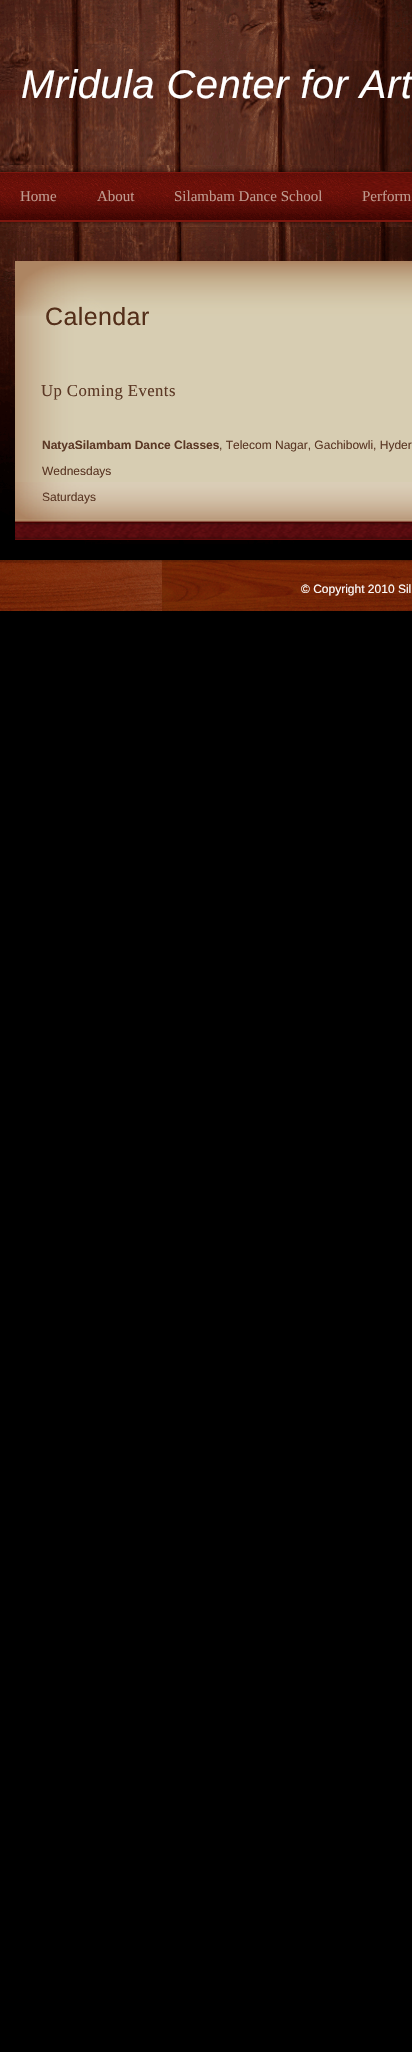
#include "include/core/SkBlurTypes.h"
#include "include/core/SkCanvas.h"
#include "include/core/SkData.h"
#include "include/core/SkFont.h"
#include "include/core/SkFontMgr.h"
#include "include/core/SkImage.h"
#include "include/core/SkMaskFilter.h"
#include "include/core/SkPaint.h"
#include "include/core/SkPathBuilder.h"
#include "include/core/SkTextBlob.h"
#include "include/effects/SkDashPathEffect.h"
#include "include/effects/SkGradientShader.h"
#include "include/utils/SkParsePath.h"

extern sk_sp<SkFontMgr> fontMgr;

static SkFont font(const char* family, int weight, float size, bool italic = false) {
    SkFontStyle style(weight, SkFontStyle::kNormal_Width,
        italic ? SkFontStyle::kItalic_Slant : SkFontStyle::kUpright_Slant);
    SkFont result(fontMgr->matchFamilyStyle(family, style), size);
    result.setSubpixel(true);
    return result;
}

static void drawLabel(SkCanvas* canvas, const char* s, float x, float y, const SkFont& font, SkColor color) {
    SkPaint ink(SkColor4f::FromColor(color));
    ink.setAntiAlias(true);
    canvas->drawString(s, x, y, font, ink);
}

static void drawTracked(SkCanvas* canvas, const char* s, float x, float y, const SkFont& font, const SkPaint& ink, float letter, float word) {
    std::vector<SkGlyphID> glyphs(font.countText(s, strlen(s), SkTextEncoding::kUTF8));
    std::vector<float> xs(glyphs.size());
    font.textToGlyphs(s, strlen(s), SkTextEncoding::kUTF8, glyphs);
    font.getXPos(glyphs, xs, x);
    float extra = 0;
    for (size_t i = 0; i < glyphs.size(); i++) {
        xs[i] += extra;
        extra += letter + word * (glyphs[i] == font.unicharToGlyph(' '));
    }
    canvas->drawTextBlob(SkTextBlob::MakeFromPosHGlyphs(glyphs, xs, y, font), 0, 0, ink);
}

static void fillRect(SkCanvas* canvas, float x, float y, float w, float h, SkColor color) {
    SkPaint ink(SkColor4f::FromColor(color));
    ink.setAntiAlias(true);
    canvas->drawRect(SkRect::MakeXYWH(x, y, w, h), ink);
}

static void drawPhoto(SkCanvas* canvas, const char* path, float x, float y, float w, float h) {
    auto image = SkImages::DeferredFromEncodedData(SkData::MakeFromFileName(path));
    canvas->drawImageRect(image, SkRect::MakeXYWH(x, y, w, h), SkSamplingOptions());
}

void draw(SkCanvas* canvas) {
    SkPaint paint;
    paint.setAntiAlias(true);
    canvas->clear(0xFF000000);
    drawPhoto(canvas, "assets/img1.png", 0, 0, 412, 544);
    SkFont font1 = font("Liberation Sans", 400, 40, true);
    paint.setColor(0xFFFFFFFF);
    drawTracked(canvas, "Mridula Center for Art", 21, 98, font1, paint, 0.4f, 0);
    fillRect(canvas, 0, 220, 412, 1, 0xFF7D160E);
    SkFont font2 = font("Liberation Serif", 400, 15);
    drawLabel(canvas, "Home", 20, 201, font2, 0xFFBF9B8F);
    drawLabel(canvas, "About", 97, 201, font2, 0xFFBF9B8F);
    drawLabel(canvas, "Silambam Dance School", 174, 201, font2, 0xFFBF9B8F);
    drawLabel(canvas, "Perform", 362, 201, font2, 0xFFBF9B8F);
    drawPhoto(canvas, "assets/img2.png", 15, 296, 397, 186);
    drawPhoto(canvas, "assets/img3.png", 15, 261, 397, 55);
    SkFont font3 = font("Liberation Sans", 400, 25);
    paint.setColor(0xFF532E19);
    drawTracked(canvas, "Calendar", 45, 325, font3, paint, 0.4f, 0);
    drawPhoto(canvas, "assets/img4.png", 15, 482, 397, 58);
    SkFont font4 = font("Liberation Serif", 400, 16.75f);
    paint.setColor(0xFF5B3825);
    drawTracked(canvas, "Up Coming Events", 41, 396, font4, paint, 0.4f, 0);
    SkFont font5 = font("Liberation Sans", 700, 12);
    drawLabel(canvas, "NatyaSilambam Dance Classes", 42, 449, font5, 0xFF5B3825);
    SkFont font6 = font("Liberation Sans", 400, 12);
    drawLabel(canvas, ", Telecom Nagar, Gachibowli, Hyder", 219, 449, font6, 0xFF5B3825);
    drawLabel(canvas, "Wednesdays", 42, 475, font6, 0xFF5B3825);
    drawLabel(canvas, "Saturdays", 42, 501, font6, 0xFF5B3825);
    drawPhoto(canvas, "assets/img5.png", 0, 560, 412, 51);
    drawLabel(canvas, "© Copyright 2010 Sil", 301, 593, font6, 0xFFFFFFFF);
}
